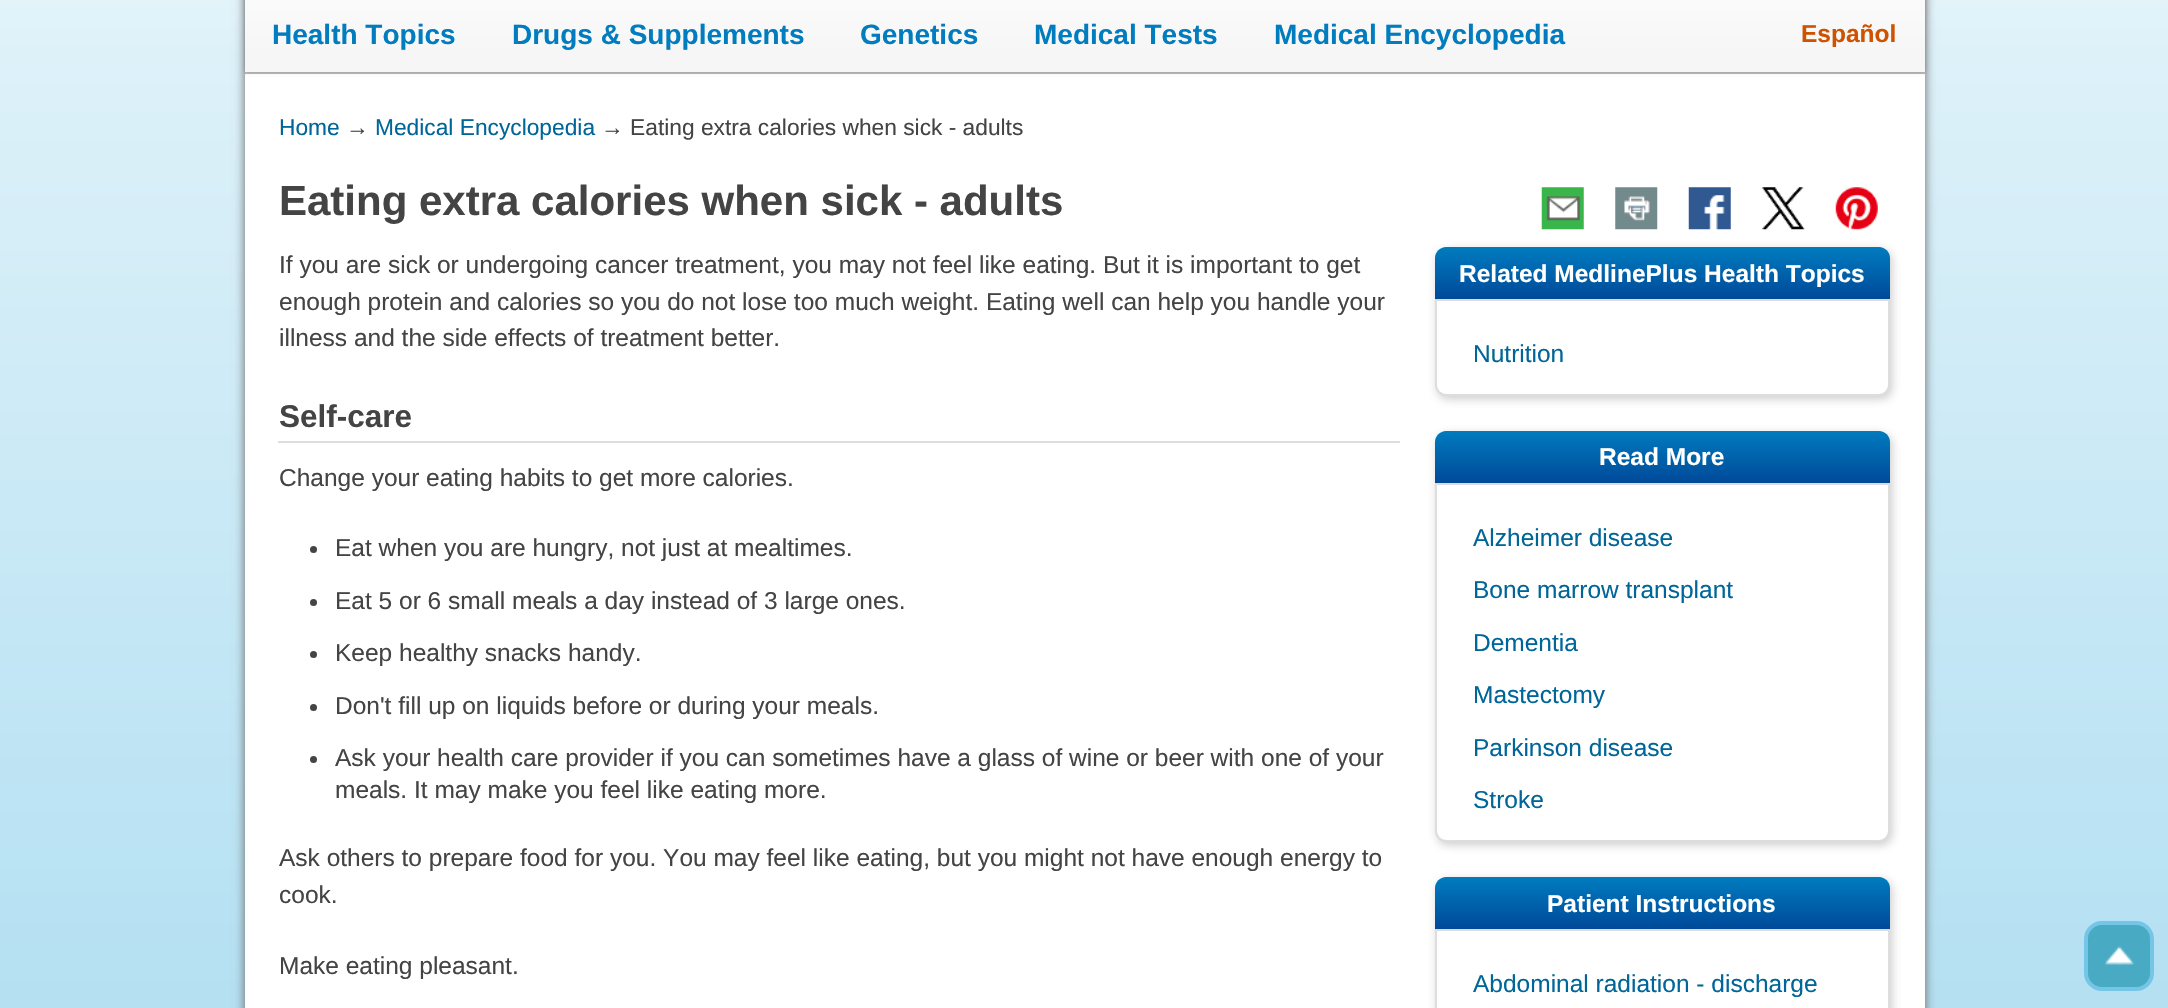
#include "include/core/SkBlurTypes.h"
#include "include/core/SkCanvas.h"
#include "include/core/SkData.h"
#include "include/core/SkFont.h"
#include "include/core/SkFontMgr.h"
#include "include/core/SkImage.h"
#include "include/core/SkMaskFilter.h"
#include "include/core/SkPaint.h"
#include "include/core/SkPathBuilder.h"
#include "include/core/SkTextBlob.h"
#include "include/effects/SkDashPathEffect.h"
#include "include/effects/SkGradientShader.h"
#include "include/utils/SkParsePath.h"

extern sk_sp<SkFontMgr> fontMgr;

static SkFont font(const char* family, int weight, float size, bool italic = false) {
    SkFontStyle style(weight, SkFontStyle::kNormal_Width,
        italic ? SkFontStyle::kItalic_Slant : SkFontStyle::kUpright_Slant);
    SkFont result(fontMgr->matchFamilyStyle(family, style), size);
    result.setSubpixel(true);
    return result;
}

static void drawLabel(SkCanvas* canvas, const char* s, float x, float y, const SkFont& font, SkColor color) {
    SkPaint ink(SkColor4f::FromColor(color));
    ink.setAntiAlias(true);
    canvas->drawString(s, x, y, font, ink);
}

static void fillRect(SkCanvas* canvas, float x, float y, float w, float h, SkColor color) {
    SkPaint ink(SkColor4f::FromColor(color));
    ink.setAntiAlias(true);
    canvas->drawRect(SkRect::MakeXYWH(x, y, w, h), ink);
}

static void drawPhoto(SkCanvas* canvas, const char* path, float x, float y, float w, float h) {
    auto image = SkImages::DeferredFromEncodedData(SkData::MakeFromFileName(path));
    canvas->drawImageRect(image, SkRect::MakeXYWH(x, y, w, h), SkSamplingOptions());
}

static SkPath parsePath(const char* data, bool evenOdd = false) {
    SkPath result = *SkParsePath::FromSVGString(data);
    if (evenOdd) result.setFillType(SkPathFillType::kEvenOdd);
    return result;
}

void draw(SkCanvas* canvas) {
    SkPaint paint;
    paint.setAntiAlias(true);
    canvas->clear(0xFFFFFFFF);
    {
        const SkColor colors[] = {0xFFFEFFFF, 0xFFDDF1F9, 0xFFA0D8EF};
        const float stops[] = {0, 0.2f, 1};
        const SkPoint ends[] = {{1084, -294}, {1084, 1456}};
        paint.setShader(SkGradientShader::MakeLinear(ends, colors, stops, 3, SkTileMode::kClamp));
        paint.setAlpha(255);
    }
    canvas->drawRect(SkRect::MakeXYWH(0, 0, 2168, 1008), paint);
    paint.setShader(nullptr);
    paint.setColor(0xFF666666);
    paint.setMaskFilter(SkMaskFilter::MakeBlur(kNormal_SkBlurStyle, 5));
    canvas->drawRect(SkRect::MakeXYWH(245, -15, 1680, 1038), paint);
    paint.setMaskFilter(nullptr);
    fillRect(canvas, 245, 74, 1680, 934, 0xFFFFFFFF);
    fillRect(canvas, 245, 72, 1680, 2, 0xFFBDBDBD);
    paint.setColor(0x33000000);
    paint.setMaskFilter(SkMaskFilter::MakeBlur(kNormal_SkBlurStyle, 2));
    canvas->drawRect(SkRect::MakeXYWH(245, -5, 1680, 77), paint);
    paint.setMaskFilter(nullptr);
    {
        const SkColor colors[] = {0xFFFAFAFA, 0xFFF6F6F6};
        const float stops[] = {0.1f, 0.75f};
        const SkPoint ends[] = {{1085, -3.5f}, {1085, 72}};
        paint.setShader(SkGradientShader::MakeLinear(ends, colors, stops, 2, SkTileMode::kClamp));
        paint.setAlpha(255);
    }
    canvas->drawRect(SkRect::MakeXYWH(245, 0, 1680, 72), paint);
    SkFont font1 = font("Liberation Sans", 700, 28);
    drawLabel(canvas, "Health Topics", 272, 44, font1, 0xFF007CBF);
    drawLabel(canvas, "Drugs & Supplements", 512, 44, font1, 0xFF007CBF);
    drawLabel(canvas, "Genetics", 860, 44, font1, 0xFF007CBF);
    drawLabel(canvas, "Medical Tests", 1034, 44, font1, 0xFF007CBF);
    drawLabel(canvas, "Medical Encyclopedia", 1274, 44, font1, 0xFF007CBF);
    SkFont font2 = font("Liberation Sans", 700, 24.5f);
    drawLabel(canvas, "Español", 1801, 42, font2, 0xFFCF5200);
    SkFont font3 = font("Liberation Sans", 400, 22.75f);
    drawLabel(canvas, "Home", 279, 135, font3, 0xFF006699);
    drawLabel(canvas, "→", 346, 135, font3, 0xFF444444);
    drawLabel(canvas, "Medical Encyclopedia", 375, 135, font3, 0xFF006699);
    drawLabel(canvas, "→ Eating extra calories when sick - adults", 601, 135, font3, 0xFF444444);
    SkFont font4 = font("Liberation Sans", 700, 42);
    drawLabel(canvas, "Eating extra calories when sick - adults", 279, 215, font4, 0xFF444444);
    drawPhoto(canvas, "assets/img1.png", 1541, 187, 43, 43);
    drawPhoto(canvas, "assets/img2.png", 1615, 187, 43, 43);
    drawPhoto(canvas, "assets/img3.png", 1688, 187, 43, 43);
    drawPhoto(canvas, "assets/img4.png", 1762, 187, 43, 43);
    drawPhoto(canvas, "assets/img5.png", 1835, 187, 43, 43);
    SkFont font5 = font("Liberation Sans", 400, 24.5f);
    drawLabel(canvas, "If you are sick or undergoing cancer treatment, you may not feel like eating. But it is important to get", 279, 273, font5, 0xFF444444);
    drawLabel(canvas, "enough protein and calories so you do not lose too much weight. Eating well can help you handle your", 279, 310, font5, 0xFF444444);
    drawLabel(canvas, "illness and the side effects of treatment better.", 279, 346, font5, 0xFF444444);
    fillRect(canvas, 278, 441, 1122, 2, 0xFFDDDDDD);
    SkFont font6 = font("Liberation Sans", 700, 31.5f);
    drawLabel(canvas, "Self-care", 279, 427, font6, 0xFF444444);
    drawLabel(canvas, "Change your eating habits to get more calories.", 279, 486, font5, 0xFF444444);
    paint.setShader(nullptr);
    paint.setColor(0xFF444444);
    canvas->drawCircle(313.5f, 549.5f, 3.5f, paint);
    drawLabel(canvas, "Eat when you are hungry, not just at mealtimes.", 335, 556, font5, 0xFF444444);
    canvas->drawCircle(313.5f, 602.5f, 3.5f, paint);
    drawLabel(canvas, "Eat 5 or 6 small meals a day instead of 3 large ones.", 335, 609, font5, 0xFF444444);
    canvas->drawCircle(313.5f, 654.5f, 3.5f, paint);
    drawLabel(canvas, "Keep healthy snacks handy.", 335, 661, font5, 0xFF444444);
    canvas->drawCircle(313.5f, 707.5f, 3.5f, paint);
    drawLabel(canvas, "Don't fill up on liquids before or during your meals.", 335, 714, font5, 0xFF444444);
    canvas->drawCircle(313.5f, 759.5f, 3.5f, paint);
    drawLabel(canvas, "Ask your health care provider if you can sometimes have a glass of wine or beer with one of your", 335, 766, font5, 0xFF444444);
    drawLabel(canvas, "meals. It may make you feel like eating more.", 335, 798, font5, 0xFF444444);
    drawLabel(canvas, "Ask others to prepare food for you. You may feel like eating, but you might not have enough energy to", 279, 866, font5, 0xFF444444);
    drawLabel(canvas, "cook.", 279, 903, font5, 0xFF444444);
    drawLabel(canvas, "Make eating pleasant.", 279, 974, font5, 0xFF444444);
    paint.setColor(0x99AAAAAA);
    paint.setMaskFilter(SkMaskFilter::MakeBlur(kNormal_SkBlurStyle, 5));
    canvas->drawRoundRect(SkRect::MakeXYWH(1437, 250, 455, 149), 11, 11, paint);
    paint.setMaskFilter(nullptr);
    {
        const SkColor colors[] = {0xFF007CBF, 0xFF004999};
        const float stops[] = {0, 1};
        const SkPoint ends[] = {{1663, 247}, {1663, 299}};
        paint.setShader(SkGradientShader::MakeLinear(ends, colors, stops, 2, SkTileMode::kClamp));
        paint.setAlpha(255);
    }
    canvas->drawPath(parsePath("M1446 247H1879C1885 247 1890 252 1890 258V299H1435V258C1435 252 1440 247 1446 247Z"), paint);
    drawLabel(canvas, "Related MedlinePlus Health Topics", 1459, 282, font2, 0xFFFFFFFF);
    paint.setShader(nullptr);
    paint.setColor(0xFFFFFFFF);
    canvas->drawPath(parsePath("M1436 300H1889V385C1889 390.5 1884.5 395 1879 395H1446C1440.5 395 1436 390.5 1436 385Z"), paint);
    paint.setStroke(true);
    paint.setStrokeWidth(2);
    paint.setColor(0xFFDDDDDD);
    canvas->drawPath(parsePath("M1436 300H1889V385C1889 390.5 1884.5 395 1879 395H1446C1440.5 395 1436 390.5 1436 385Z"), paint);
    drawLabel(canvas, "Nutrition", 1473, 362, font5, 0xFF006699);
    paint.setStroke(false);
    paint.setColor(0x99AAAAAA);
    paint.setMaskFilter(SkMaskFilter::MakeBlur(kNormal_SkBlurStyle, 5));
    canvas->drawRoundRect(SkRect::MakeXYWH(1437, 434, 455, 411), 11, 11, paint);
    paint.setMaskFilter(nullptr);
    {
        const SkColor colors[] = {0xFF007CBF, 0xFF004999};
        const float stops[] = {0, 1};
        const SkPoint ends[] = {{1663, 430}, {1663, 483}};
        paint.setShader(SkGradientShader::MakeLinear(ends, colors, stops, 2, SkTileMode::kClamp));
        paint.setAlpha(255);
    }
    canvas->drawPath(parsePath("M1446 431H1879C1885 431 1890 436 1890 442V483H1435V442C1435 436 1440 431 1446 431Z"), paint);
    drawLabel(canvas, "Read More", 1599, 465, font2, 0xFFFFFFFF);
    paint.setShader(nullptr);
    paint.setColor(0xFFFFFFFF);
    canvas->drawPath(parsePath("M1436 484H1889V831C1889 836.5 1884.5 841 1879 841H1446C1440.5 841 1436 836.5 1436 831Z"), paint);
    paint.setStroke(true);
    paint.setColor(0xFFDDDDDD);
    canvas->drawPath(parsePath("M1436 484H1889V831C1889 836.5 1884.5 841 1879 841H1446C1440.5 841 1436 836.5 1436 831Z"), paint);
    drawLabel(canvas, "Alzheimer disease", 1473, 546, font5, 0xFF006699);
    drawLabel(canvas, "Bone marrow transplant", 1473, 598, font5, 0xFF006699);
    drawLabel(canvas, "Dementia", 1473, 651, font5, 0xFF006699);
    drawLabel(canvas, "Mastectomy", 1473, 703, font5, 0xFF006699);
    drawLabel(canvas, "Parkinson disease", 1473, 756, font5, 0xFF006699);
    drawLabel(canvas, "Stroke", 1473, 808, font5, 0xFF006699);
    canvas->save();
    canvas->clipPath(parsePath("M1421 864H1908V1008H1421ZM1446 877H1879C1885 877 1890 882 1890 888V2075C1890 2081 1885 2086 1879 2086H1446C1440 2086 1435 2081 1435 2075V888C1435 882 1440 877 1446 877Z", true), true);
    paint.setStroke(false);
    paint.setColor(0x99AAAAAA);
    paint.setMaskFilter(SkMaskFilter::MakeBlur(kNormal_SkBlurStyle, 5));
    canvas->drawRoundRect(SkRect::MakeXYWH(1437, 880, 455, 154), 11, 11, paint);
    paint.setMaskFilter(nullptr);
    canvas->restore();
    {
        const SkColor colors[] = {0xFF007CBF, 0xFF004999};
        const float stops[] = {0, 1};
        const SkPoint ends[] = {{1663, 877}, {1663, 929}};
        paint.setShader(SkGradientShader::MakeLinear(ends, colors, stops, 2, SkTileMode::kClamp));
        paint.setAlpha(255);
    }
    canvas->drawPath(parsePath("M1446 877H1879C1885 877 1890 882 1890 888V929H1435V888C1435 882 1440 877 1446 877Z"), paint);
    drawLabel(canvas, "Patient Instructions", 1547, 912, font2, 0xFFFFFFFF);
    paint.setStroke(true);
    paint.setShader(nullptr);
    paint.setColor(0xFFDDDDDD);
    canvas->drawRect(SkRect::MakeXYWH(1436, 930, 453, 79), paint);
    drawLabel(canvas, "Abdominal radiation - discharge", 1473, 992, font5, 0xFF006699);
    paint.setStroke(false);
    paint.setColor(0xFF49AAC4);
    canvas->drawRoundRect(SkRect::MakeXYWH(2086, 923, 66, 66), 16, 16, paint);
    paint.setStroke(true);
    paint.setStrokeWidth(4);
    paint.setColor(0xFF74C5E6);
    canvas->drawRoundRect(SkRect::MakeXYWH(2086, 923, 66, 66), 16, 16, paint);
    drawPhoto(canvas, "assets/img6.png", 2105, 946, 29, 19);
}
